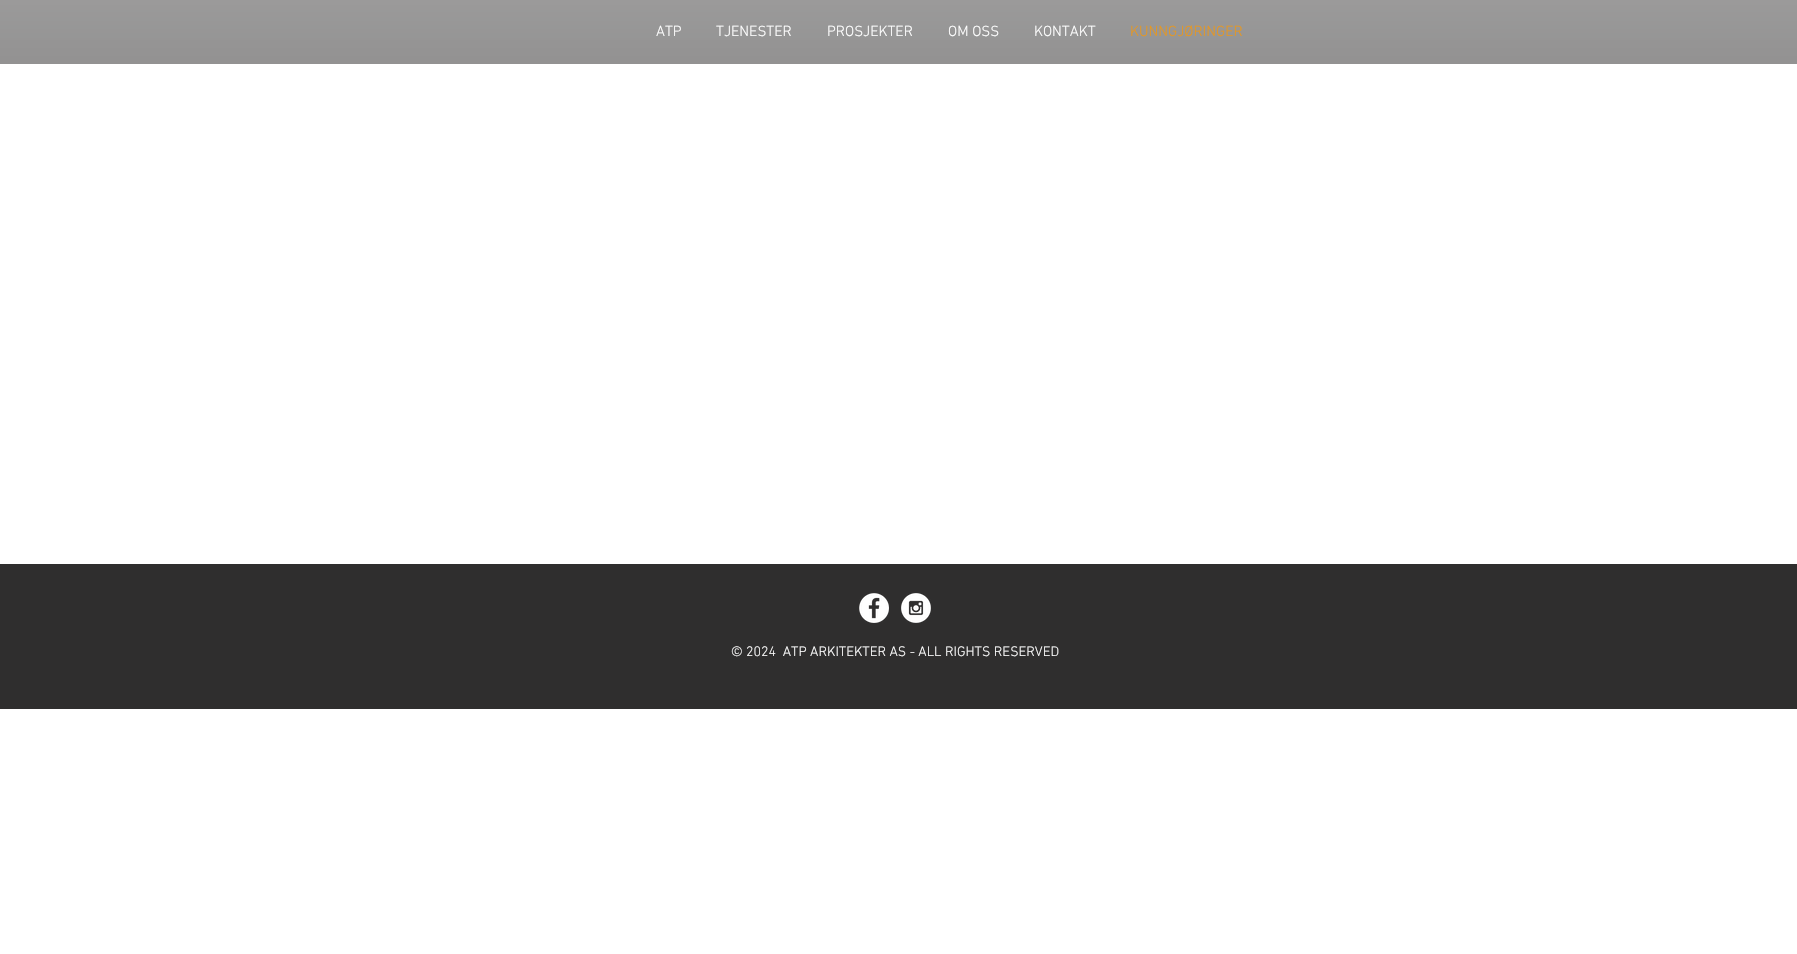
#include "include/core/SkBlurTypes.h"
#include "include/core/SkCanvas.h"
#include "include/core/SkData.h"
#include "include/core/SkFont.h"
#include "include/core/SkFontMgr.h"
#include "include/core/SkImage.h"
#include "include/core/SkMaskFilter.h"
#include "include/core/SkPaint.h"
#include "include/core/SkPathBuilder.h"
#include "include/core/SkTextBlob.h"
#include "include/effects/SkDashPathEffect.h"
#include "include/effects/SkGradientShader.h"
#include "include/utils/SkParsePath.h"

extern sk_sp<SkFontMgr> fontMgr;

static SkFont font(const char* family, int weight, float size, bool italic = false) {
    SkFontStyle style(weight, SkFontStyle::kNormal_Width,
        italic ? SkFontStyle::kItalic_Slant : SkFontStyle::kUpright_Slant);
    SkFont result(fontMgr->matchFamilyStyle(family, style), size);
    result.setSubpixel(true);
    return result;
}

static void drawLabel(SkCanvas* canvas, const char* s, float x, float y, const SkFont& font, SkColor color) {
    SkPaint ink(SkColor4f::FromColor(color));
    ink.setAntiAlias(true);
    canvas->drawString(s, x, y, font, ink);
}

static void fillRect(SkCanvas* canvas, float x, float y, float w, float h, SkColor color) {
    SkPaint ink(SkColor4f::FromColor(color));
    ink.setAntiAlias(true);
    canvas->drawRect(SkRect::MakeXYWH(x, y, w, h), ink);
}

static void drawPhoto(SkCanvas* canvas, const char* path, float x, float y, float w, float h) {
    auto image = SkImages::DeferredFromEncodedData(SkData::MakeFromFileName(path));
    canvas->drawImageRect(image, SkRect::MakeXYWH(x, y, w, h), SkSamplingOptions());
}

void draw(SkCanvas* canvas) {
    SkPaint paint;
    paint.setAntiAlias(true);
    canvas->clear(0xFFFFFFFF);
    fillRect(canvas, 0, 0, 1797, 64, 0xFF787777);
    drawPhoto(canvas, "assets/img1.png", 0, 0, 1797, 64);
    SkFont font1 = font("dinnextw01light", 300, 15);
    drawLabel(canvas, "ATP", 656, 36, font1, 0xFFFFFFFF);
    drawLabel(canvas, "TJENESTER", 716, 36, font1, 0xFFFFFFFF);
    drawLabel(canvas, "PROSJEKTER", 827, 36, font1, 0xFFFFFFFF);
    drawLabel(canvas, "OM OSS", 948, 36, font1, 0xFFFFFFFF);
    drawLabel(canvas, "KONTAKT", 1034, 36, font1, 0xFFFFFFFF);
    drawLabel(canvas, "KUNNGJØRINGER", 1130, 36, font1, 0xFFE69722);
    fillRect(canvas, 0, 564, 1797, 145, 0xFF2F2E2E);
    drawPhoto(canvas, "assets/img2.png", 859, 593, 30, 30);
    drawPhoto(canvas, "assets/img3.png", 901, 593, 30, 30);
    SkFont font2 = font("dinnextw01light", 300, 14);
    drawLabel(canvas, "© 2024  ATP ARKITEKTER AS - ALL RIGHTS RESERVED", 731, 656, font2, 0xFFFFFFFF);
}
